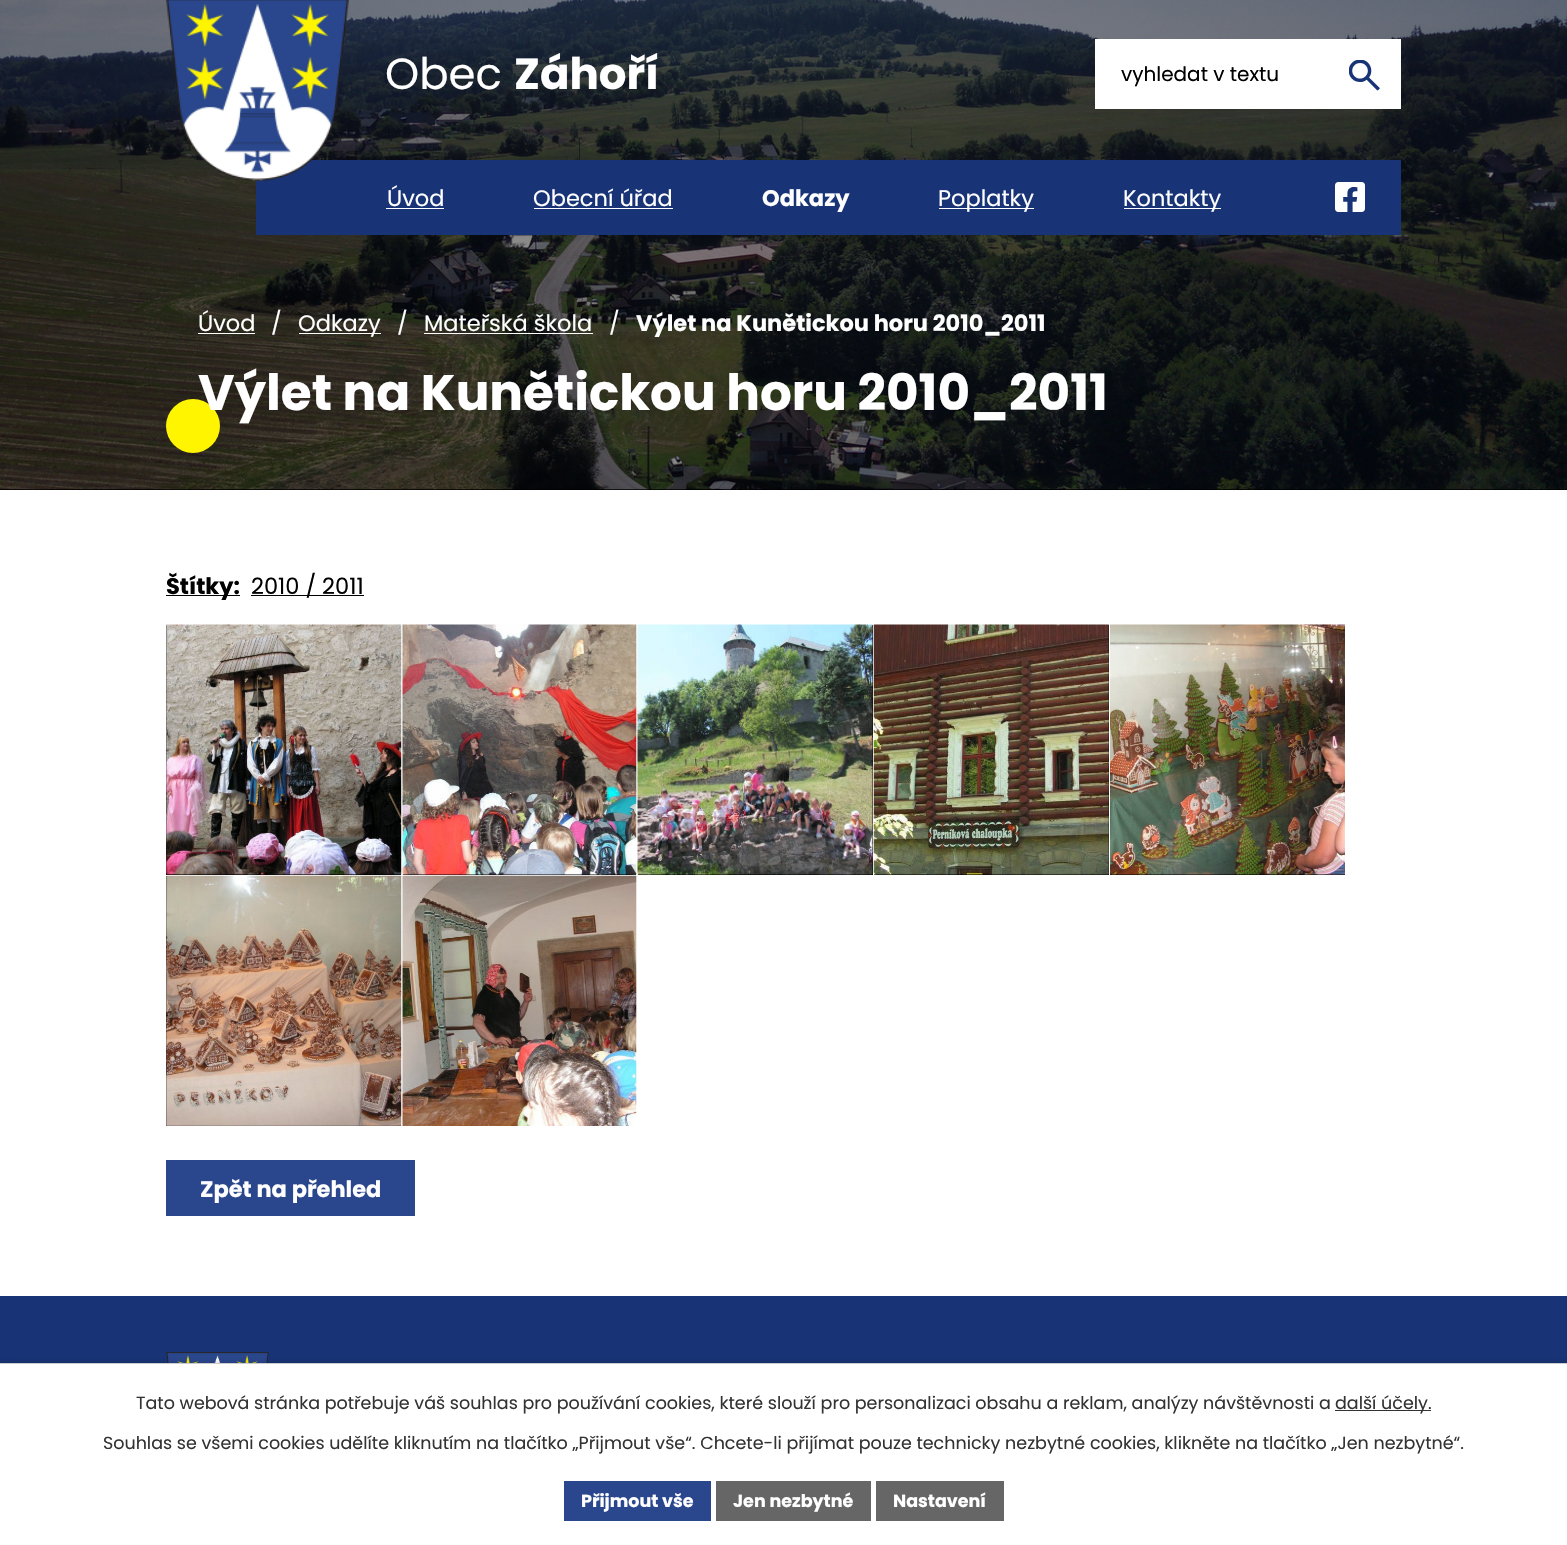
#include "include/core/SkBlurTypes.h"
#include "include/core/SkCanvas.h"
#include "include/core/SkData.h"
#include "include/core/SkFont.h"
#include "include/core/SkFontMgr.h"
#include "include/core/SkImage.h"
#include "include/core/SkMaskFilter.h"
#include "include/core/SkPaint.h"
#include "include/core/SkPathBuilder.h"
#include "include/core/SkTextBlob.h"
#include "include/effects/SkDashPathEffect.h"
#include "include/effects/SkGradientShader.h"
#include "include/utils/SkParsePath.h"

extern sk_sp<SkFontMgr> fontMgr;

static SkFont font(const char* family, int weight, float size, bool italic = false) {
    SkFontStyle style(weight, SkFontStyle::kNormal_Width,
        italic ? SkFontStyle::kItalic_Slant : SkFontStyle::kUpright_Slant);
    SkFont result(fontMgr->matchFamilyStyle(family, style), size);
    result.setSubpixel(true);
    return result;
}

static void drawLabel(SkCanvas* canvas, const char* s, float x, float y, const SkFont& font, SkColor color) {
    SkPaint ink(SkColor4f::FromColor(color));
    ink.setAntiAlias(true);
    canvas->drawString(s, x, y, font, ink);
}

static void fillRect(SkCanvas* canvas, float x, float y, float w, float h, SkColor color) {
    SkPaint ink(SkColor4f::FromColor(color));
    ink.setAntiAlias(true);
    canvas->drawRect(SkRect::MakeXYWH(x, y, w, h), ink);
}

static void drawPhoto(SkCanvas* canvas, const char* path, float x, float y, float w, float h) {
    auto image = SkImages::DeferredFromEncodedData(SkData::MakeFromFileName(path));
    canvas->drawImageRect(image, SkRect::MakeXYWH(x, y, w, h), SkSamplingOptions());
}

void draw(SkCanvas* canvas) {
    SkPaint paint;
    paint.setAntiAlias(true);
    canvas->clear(0xFFFFFFFF);
    fillRect(canvas, 0, 0, 1567, 490, 0xFF000000);
    drawPhoto(canvas, "assets/img4.png", 0, 0, 1567, 490);
    fillRect(canvas, 256, 160, 1145, 75, 0xFF183376);
    drawPhoto(canvas, "assets/img1.png", 166, 0, 183, 181);
    SkFont font1 = font("Poppins", 400, 43.5f);
    drawLabel(canvas, "Obec", 385, 89, font1, 0xFFFFFFFF);
    SkFont font2 = font("Poppins", 700, 43.5f);
    drawLabel(canvas, "Záhoří", 514, 89, font2, 0xFFFFFFFF);
    fillRect(canvas, 1095, 39, 306, 70, 0xFFFFFFFF);
    SkFont font3 = font("Poppins", 400, 20);
    drawLabel(canvas, "vyhledat v textu", 1121, 81, font3, 0xFF000000);
    drawPhoto(canvas, "assets/img2.png", 1349, 60, 31, 31);
    drawPhoto(canvas, "assets/img3.png", 1335, 182, 30, 30);
    SkFont font4 = font("Poppins", 400, 22.5f);
    drawLabel(canvas, "Úvod", 198, 331, font4, 0xFFFFFFFF);
    fillRect(canvas, 198, 333, 57, 1, 0xFFFFFFFF);
    drawLabel(canvas, "/", 271, 331, font4, 0xFFFFFFFF);
    fillRect(canvas, 299, 333, 82, 1, 0xFFFFFFFF);
    drawLabel(canvas, "Odkazy", 298, 331, font4, 0xFFFFFFFF);
    drawLabel(canvas, "/", 397, 331, font4, 0xFFFFFFFF);
    drawLabel(canvas, "Mateřská škola", 424, 331, font4, 0xFFFFFFFF);
    fillRect(canvas, 424, 333, 169, 1, 0xFFFFFFFF);
    drawLabel(canvas, "/", 609, 331, font4, 0xFFFFFFFF);
    SkFont font5 = font("Poppins", 700, 22.5f);
    drawLabel(canvas, "Výlet na Kunětickou horu 2010_2011", 636, 331, font5, 0xFFFFFFFF);
    paint.setColor(0xFFFFF500);
    canvas->drawCircle(193, 426, 27, paint);
    SkFont font6 = font("Poppins", 700, 50);
    drawLabel(canvas, "Výlet na Kunětickou horu 2010_2011", 198, 410, font6, 0xFFFFFFFF);
    drawLabel(canvas, "Úvod", 387, 206, font4, 0xFFFFFFFF);
    fillRect(canvas, 386, 208, 58, 1, 0xFFFFFFFF);
    drawLabel(canvas, "Obecní úřad", 533, 206, font4, 0xFFFFFFFF);
    fillRect(canvas, 534, 208, 139, 1, 0xFFFFFFFF);
    drawLabel(canvas, "Odkazy", 762, 206, font5, 0xFFFFFFFF);
    fillRect(canvas, 939, 208, 95, 1, 0xFFFFFFFF);
    drawLabel(canvas, "Poplatky", 938, 206, font4, 0xFFFFFFFF);
    fillRect(canvas, 1124, 208, 97, 1, 0xFFFFFFFF);
    drawLabel(canvas, "Kontakty", 1123, 206, font4, 0xFFFFFFFF);
    fillRect(canvas, 166, 595, 74, 1, 0xFF000000);
    drawLabel(canvas, "Štítky:", 166, 594, font5, 0xFF000000);
    fillRect(canvas, 251, 595, 113, 1, 0xFF000000);
    drawLabel(canvas, "2010 / 2011", 251, 594, font4, 0xFF000000);
    fillRect(canvas, 166, 625, 235, 250, 0xFF000000);
    drawPhoto(canvas, "assets/img5.png", 166, 624, 236, 251);
    fillRect(canvas, 403, 874, 233, 1, 0xFF000000);
    drawPhoto(canvas, "assets/img6.png", 402, 624, 235, 251);
    fillRect(canvas, 638, 625, 235, 250, 0xFF000000);
    drawPhoto(canvas, "assets/img7.png", 637, 624, 236, 251);
    fillRect(canvas, 874, 625, 235, 250, 0xFF000000);
    drawPhoto(canvas, "assets/img8.png", 873, 624, 236, 251);
    fillRect(canvas, 1110, 874, 235, 1, 0xFF000000);
    drawPhoto(canvas, "assets/img9.png", 1110, 624, 235, 251);
    fillRect(canvas, 166, 876, 235, 250, 0xFF000000);
    drawPhoto(canvas, "assets/img10.png", 166, 875, 236, 251);
    drawPhoto(canvas, "assets/img11.png", 402, 875, 235, 251);
    fillRect(canvas, 166, 1160, 249, 56, 0xFF2A478D);
    drawLabel(canvas, "Zpět na přehled", 200, 1197, font5, 0xFFFFFFFF);
    fillRect(canvas, 0, 1296, 1567, 67, 0xFF183376);
    drawPhoto(canvas, "assets/img12.png", 166, 1352, 103, 11);
    paint.setColor(0x33000000);
    paint.setMaskFilter(SkMaskFilter::MakeBlur(kNormal_SkBlurStyle, 3));
    canvas->drawRect(SkRect::MakeXYWH(0, 1363, 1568, 182), paint);
    paint.setMaskFilter(nullptr);
    fillRect(canvas, 0, 1364, 1567, 181, 0xFFFFFFFF);
    fillRect(canvas, 0, 1363, 1567, 1, 0xFFCCCCCC);
    SkFont font7 = font("Poppins", 400, 17.5f);
    drawLabel(canvas, "Tato webová stránka potřebuje váš souhlas pro používání cookies, které slouží pro personalizaci obsahu a reklam, analýzy návštěvnosti a", 136, 1409, font7, 0xFF333333);
    fillRect(canvas, 1335, 1410, 96, 1, 0xFF333333);
    drawLabel(canvas, "další účely.", 1335, 1409, font7, 0xFF333333);
    drawLabel(canvas, "Souhlas se všemi cookies udělíte kliknutím na tlačítko „Přijmout vše“. Chcete-li přijímat pouze technicky nezbytné cookies, klikněte na tlačítko „Jen nezbytné“.", 103, 1449, font7, 0xFF333333);
    fillRect(canvas, 564, 1481, 147, 40, 0xFF2A478D);
    SkFont font8 = font("Poppins", 700, 17.5f);
    drawLabel(canvas, "Přijmout vše", 581, 1507, font8, 0xFFFFFFFF);
    fillRect(canvas, 716, 1481, 155, 40, 0xFF666666);
    drawLabel(canvas, "Jen nezbytné", 733, 1507, font8, 0xFFFFFFFF);
    fillRect(canvas, 876, 1481, 128, 40, 0xFF666666);
    drawLabel(canvas, "Nastavení", 893, 1507, font8, 0xFFFFFFFF);
}
